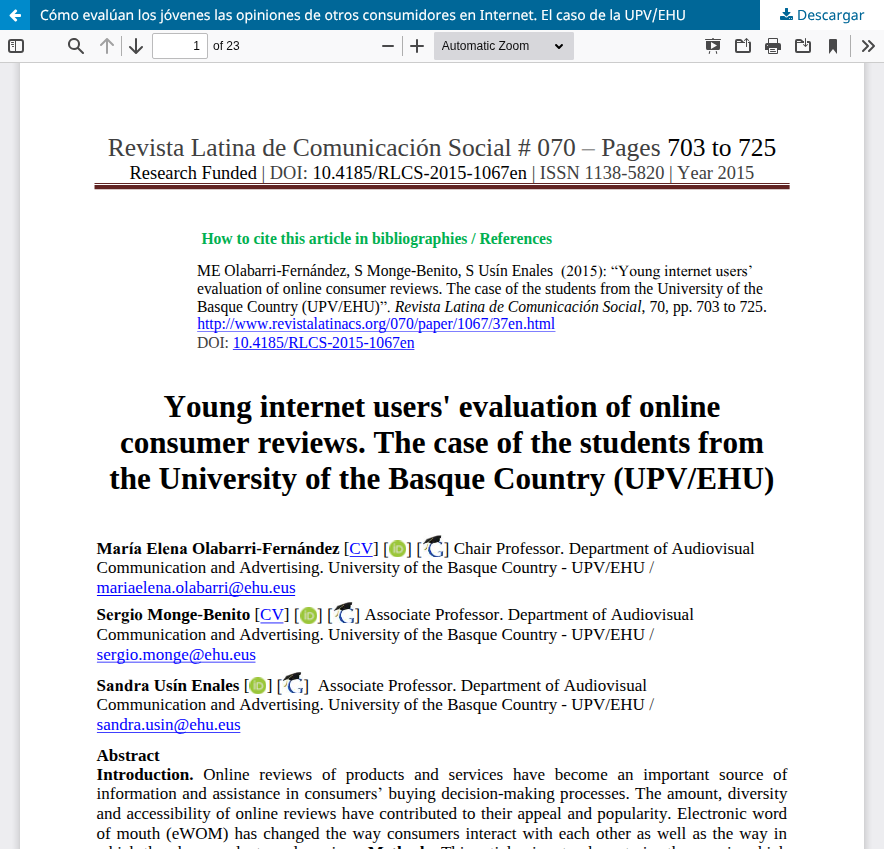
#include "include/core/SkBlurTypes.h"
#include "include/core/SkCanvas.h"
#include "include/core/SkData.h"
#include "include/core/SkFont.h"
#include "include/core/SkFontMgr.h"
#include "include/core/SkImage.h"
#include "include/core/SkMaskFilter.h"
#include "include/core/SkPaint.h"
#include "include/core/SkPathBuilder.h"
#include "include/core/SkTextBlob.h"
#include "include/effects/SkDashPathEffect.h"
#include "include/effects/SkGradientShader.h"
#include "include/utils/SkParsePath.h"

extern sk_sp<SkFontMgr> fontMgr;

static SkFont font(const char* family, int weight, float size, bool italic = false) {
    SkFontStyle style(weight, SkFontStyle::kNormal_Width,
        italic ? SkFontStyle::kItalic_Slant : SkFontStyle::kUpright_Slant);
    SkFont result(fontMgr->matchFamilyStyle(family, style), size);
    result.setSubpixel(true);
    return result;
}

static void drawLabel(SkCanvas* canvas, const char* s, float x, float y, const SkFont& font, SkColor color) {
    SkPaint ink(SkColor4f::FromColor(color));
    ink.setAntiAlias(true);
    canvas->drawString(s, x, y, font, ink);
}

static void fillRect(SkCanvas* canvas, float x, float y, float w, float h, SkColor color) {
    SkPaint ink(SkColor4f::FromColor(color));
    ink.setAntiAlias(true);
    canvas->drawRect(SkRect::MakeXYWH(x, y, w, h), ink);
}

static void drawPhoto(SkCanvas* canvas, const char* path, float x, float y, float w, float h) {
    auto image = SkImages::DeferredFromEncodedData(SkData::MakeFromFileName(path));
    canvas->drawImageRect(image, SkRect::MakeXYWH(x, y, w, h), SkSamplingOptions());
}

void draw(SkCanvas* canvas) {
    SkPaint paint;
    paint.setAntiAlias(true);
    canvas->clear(0xFFFFFFFF);
    fillRect(canvas, 30, 0, 730, 30, 0xFF006798);
    fillRect(canvas, 0, 0, 30, 30, 0xFF008ACB);
    drawPhoto(canvas, "assets/img1.png", 9, 9, 12, 13);
    SkFont font1 = font("Noto Sans", 400, 14);
    drawLabel(canvas, "Cómo evalúan los jóvenes las opiniones de otros consumidores en Internet. El caso de la UPV/EHU", 40, 20, font1, 0xFFFFFFFF);
    drawPhoto(canvas, "assets/img2.png", 780, 8, 13, 12);
    drawLabel(canvas, "Descargar", 797, 20, font1, 0xFF006798);
    drawPhoto(canvas, "assets/img3.png", 0, 30, 884, 819);
}
